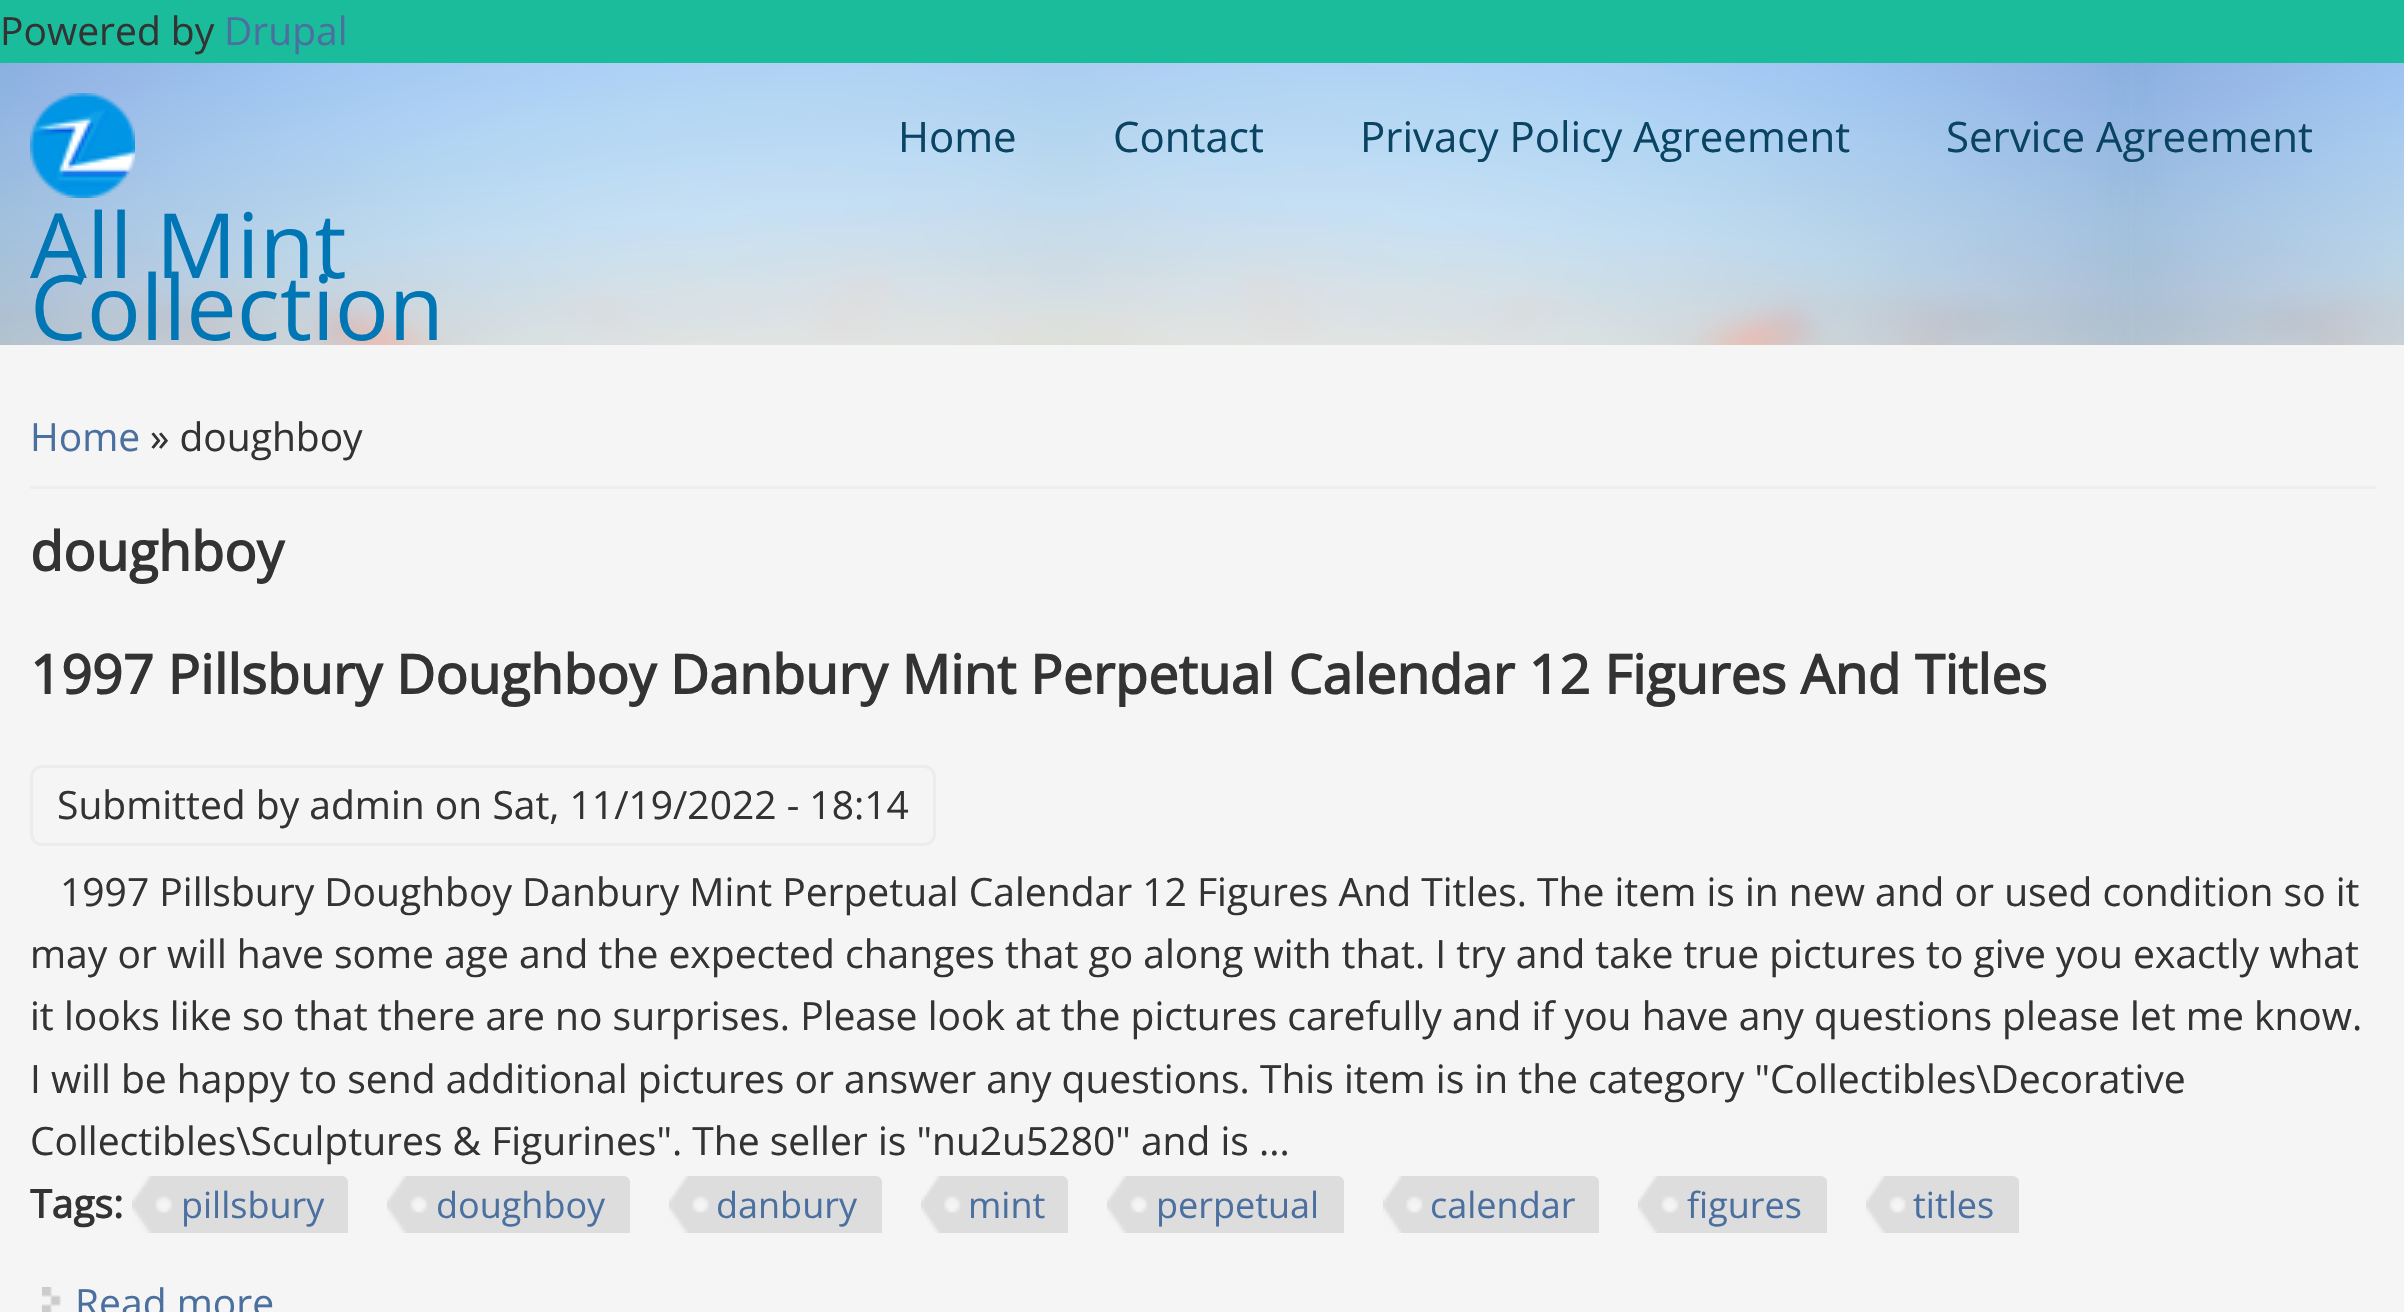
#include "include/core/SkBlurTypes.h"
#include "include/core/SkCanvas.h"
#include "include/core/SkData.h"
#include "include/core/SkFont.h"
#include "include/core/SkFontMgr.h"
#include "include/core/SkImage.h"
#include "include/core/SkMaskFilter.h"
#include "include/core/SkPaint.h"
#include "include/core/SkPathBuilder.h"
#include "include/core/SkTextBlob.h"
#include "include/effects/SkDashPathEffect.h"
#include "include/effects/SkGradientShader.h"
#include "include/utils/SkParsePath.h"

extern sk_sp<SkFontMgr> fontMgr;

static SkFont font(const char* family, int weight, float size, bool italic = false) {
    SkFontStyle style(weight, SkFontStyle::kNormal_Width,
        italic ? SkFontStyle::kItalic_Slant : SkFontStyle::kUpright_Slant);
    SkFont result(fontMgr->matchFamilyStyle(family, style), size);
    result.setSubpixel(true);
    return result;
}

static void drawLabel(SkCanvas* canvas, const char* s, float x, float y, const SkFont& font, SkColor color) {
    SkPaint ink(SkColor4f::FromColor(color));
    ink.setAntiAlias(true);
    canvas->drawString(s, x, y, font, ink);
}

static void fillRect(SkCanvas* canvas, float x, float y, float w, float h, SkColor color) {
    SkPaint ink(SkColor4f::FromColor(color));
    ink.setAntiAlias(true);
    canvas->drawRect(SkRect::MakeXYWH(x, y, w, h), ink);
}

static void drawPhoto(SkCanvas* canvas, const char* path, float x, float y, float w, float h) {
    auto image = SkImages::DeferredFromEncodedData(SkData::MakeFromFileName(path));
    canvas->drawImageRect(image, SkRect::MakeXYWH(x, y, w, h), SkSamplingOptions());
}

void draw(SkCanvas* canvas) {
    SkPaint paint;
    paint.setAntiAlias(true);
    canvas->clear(0xFFFFFFFF);
    drawPhoto(canvas, "assets/img1.png", 0, 63, 2404, 282);
    fillRect(canvas, 0, 0, 2404, 63, 0xFF1ABC9C);
    SkFont font1 = font("Open Sans", 400, 39);
    drawLabel(canvas, "Powered by", 0, 45, font1, 0xFF333333);
    drawLabel(canvas, "Drupal", 224, 45, font1, 0xFF4B70A0);
    SkFont font2 = font("Open Sans", 400, 42);
    drawLabel(canvas, "Home", 898, 152, font2, 0xFF0A4463);
    drawLabel(canvas, "Contact", 1113, 152, font2, 0xFF0A4463);
    drawLabel(canvas, "Privacy Policy Agreement", 1360, 152, font2, 0xFF0A4463);
    drawLabel(canvas, "Service Agreement", 1946, 152, font2, 0xFF0A4463);
    drawPhoto(canvas, "assets/img2.png", 30, 93, 105, 105);
    SkFont font3 = font("Open Sans", 400, 90);
    drawLabel(canvas, "All Mint", 30, 278, font3, 0xFF0076B5);
    drawLabel(canvas, "Collection", 30, 340, font3, 0xFF0076B5);
    fillRect(canvas, 0, 345, 2404, 967, 0xFFF5F5F5);
    fillRect(canvas, 30, 486, 2346, 3, 0xFFEEEEEE);
    drawLabel(canvas, "Home", 30, 451, font1, 0xFF4B70A0);
    drawLabel(canvas, "» doughboy", 150, 451, font1, 0xFF333333);
    SkFont font4 = font("Open Sans", 700, 54);
    drawLabel(canvas, "doughboy", 30, 571, font4, 0xFF333333);
    drawLabel(canvas, "1997 Pillsbury Doughboy Danbury Mint Perpetual Calendar 12 Figures And Titles", 30, 694, font4, 0xFF333333);
    paint.setStroke(true);
    paint.setStrokeWidth(3);
    paint.setColor(0xFFECECEC);
    canvas->drawRoundRect(SkRect::MakeXYWH(31.5f, 766.5f, 903, 78), 10.5f, 10.5f, paint);
    drawLabel(canvas, "Submitted by admin on Sat, 11/19/2022 - 18:14", 57, 819, font1, 0xFF333333);
    drawLabel(canvas, "1997 Pillsbury Doughboy Danbury Mint Perpetual Calendar 12 Figures And Titles. The item is in new and or used condition so it", 60, 906, font1, 0xFF333333);
    drawLabel(canvas, "may or will have some age and the expected changes that go along with that. I try and take true pictures to give you exactly what", 30, 968, font1, 0xFF333333);
    drawLabel(canvas, "it looks like so that there are no surprises. Please look at the pictures carefully and if you have any questions please let me know.", 30, 1030, font1, 0xFF333333);
    drawLabel(canvas, "I will be happy to send additional pictures or answer any questions. This item is in the category \"Collectibles\\Decorative", 30, 1093, font1, 0xFF333333);
    drawLabel(canvas, "Collectibles\\Sculptures & Figurines\". The seller is \"nu2u5280\" and is ...", 30, 1155, font1, 0xFF333333);
    SkFont font5 = font("Open Sans", 700, 39);
    drawLabel(canvas, "Tags:", 30, 1218, font5, 0xFF333333);
    drawPhoto(canvas, "assets/img3.png", 132, 1176, 216, 57);
    SkFont font6 = font("Open Sans", 400, 36);
    drawLabel(canvas, "pillsbury", 181, 1218, font6, 0xFF4B70A0);
    drawPhoto(canvas, "assets/img4.png", 387, 1176, 243, 57);
    drawLabel(canvas, "doughboy", 436, 1218, font6, 0xFF4B70A0);
    drawPhoto(canvas, "assets/img5.png", 669, 1176, 213, 57);
    drawLabel(canvas, "danbury", 716, 1218, font6, 0xFF4B70A0);
    drawPhoto(canvas, "assets/img6.png", 921, 1176, 147, 57);
    drawLabel(canvas, "mint", 968, 1218, font6, 0xFF4B70A0);
    drawPhoto(canvas, "assets/img7.png", 1107, 1176, 237, 57);
    drawLabel(canvas, "perpetual", 1156, 1218, font6, 0xFF4B70A0);
    drawPhoto(canvas, "assets/img8.png", 1383, 1176, 216, 57);
    drawLabel(canvas, "calendar", 1430, 1218, font6, 0xFF4B70A0);
    drawPhoto(canvas, "assets/img9.png", 1638, 1176, 189, 57);
    drawLabel(canvas, "figures", 1687, 1218, font6, 0xFF4B70A0);
    drawPhoto(canvas, "assets/img10.png", 1866, 1176, 153, 57);
    drawLabel(canvas, "titles", 1913, 1218, font6, 0xFF4B70A0);
    drawPhoto(canvas, "assets/img11.png", 42, 1287, 19, 25);
    drawLabel(canvas, "Read more", 75, 1317, font1, 0xFF4B70A0);
}
